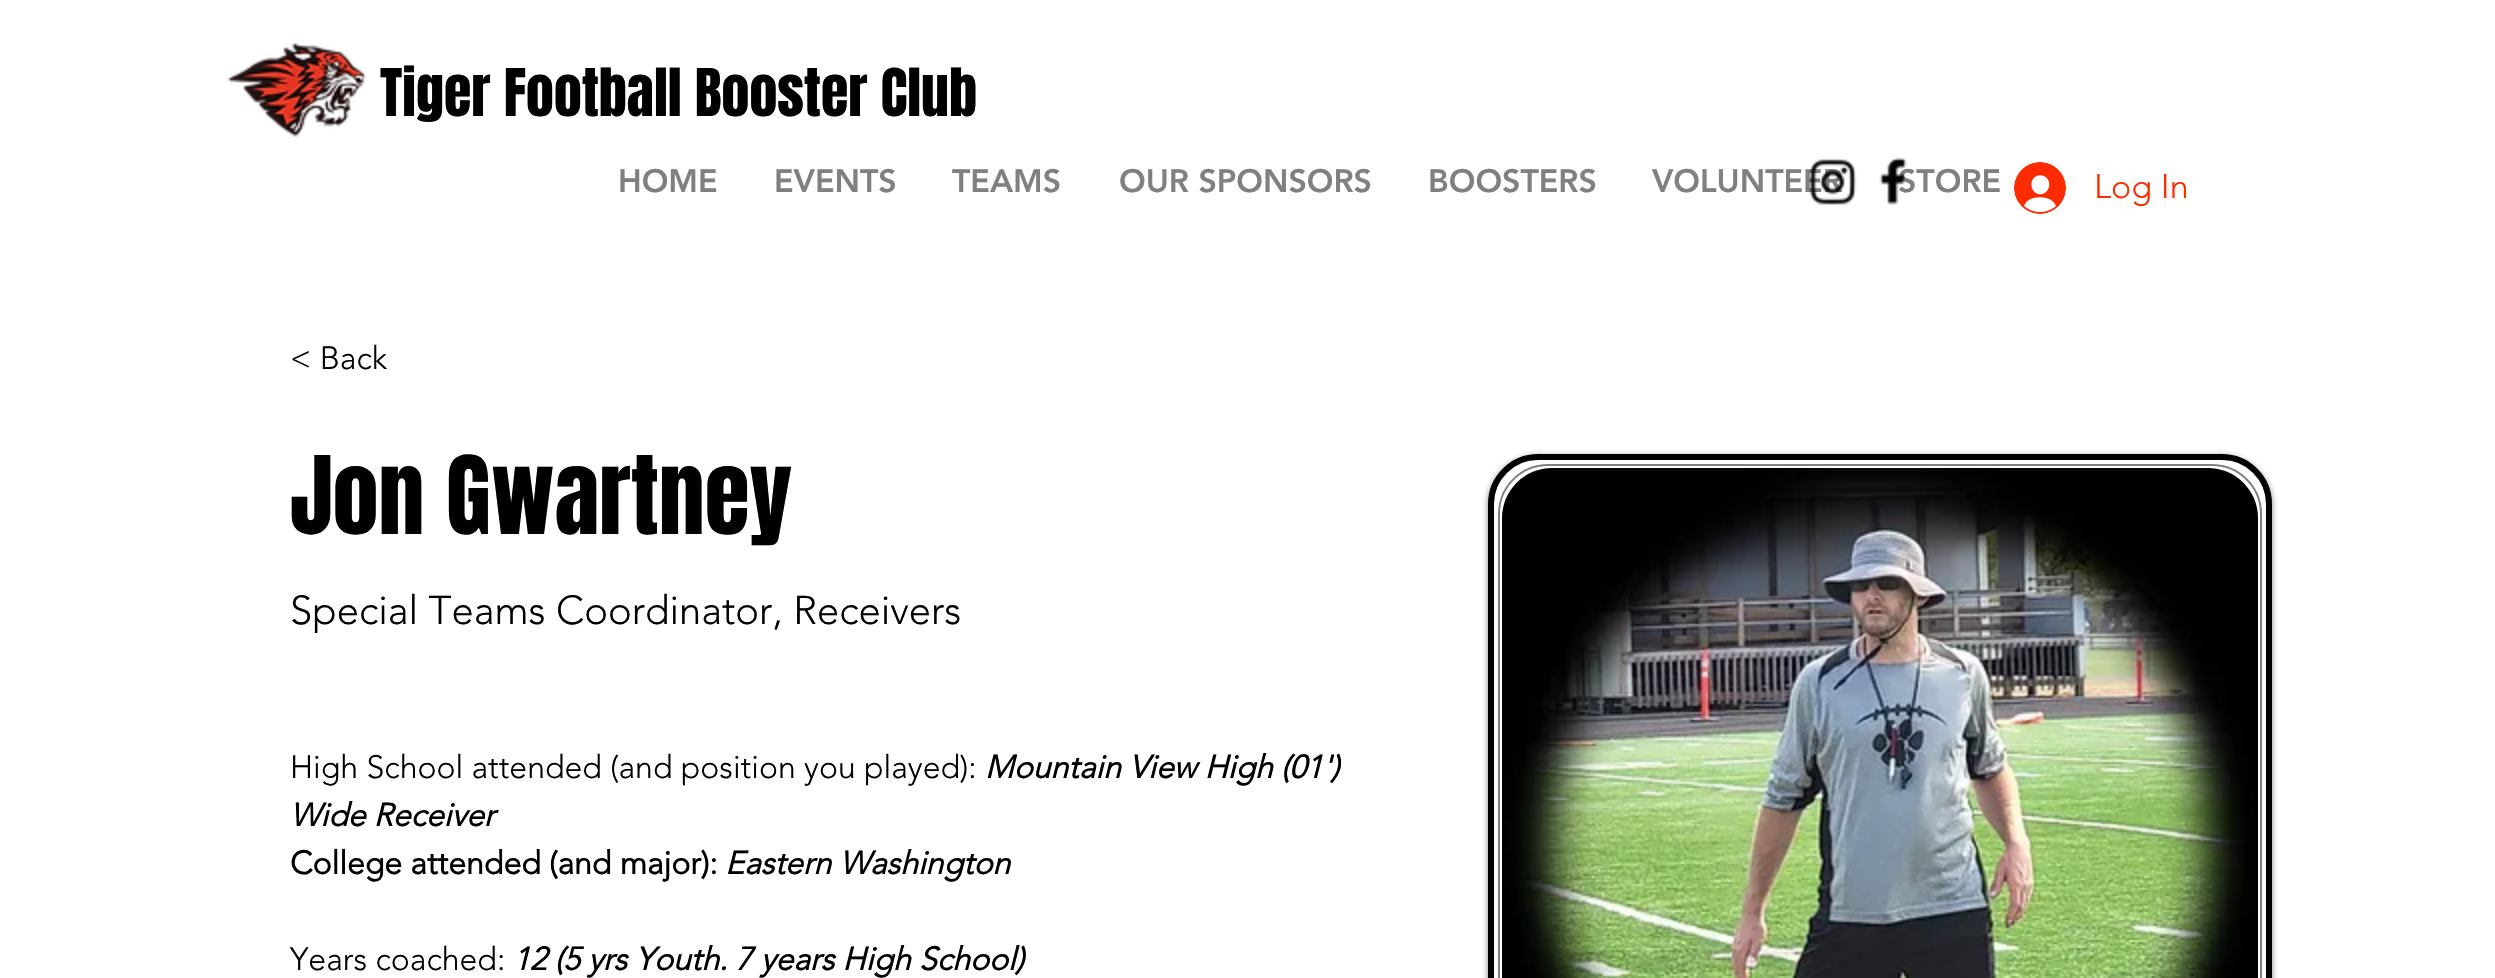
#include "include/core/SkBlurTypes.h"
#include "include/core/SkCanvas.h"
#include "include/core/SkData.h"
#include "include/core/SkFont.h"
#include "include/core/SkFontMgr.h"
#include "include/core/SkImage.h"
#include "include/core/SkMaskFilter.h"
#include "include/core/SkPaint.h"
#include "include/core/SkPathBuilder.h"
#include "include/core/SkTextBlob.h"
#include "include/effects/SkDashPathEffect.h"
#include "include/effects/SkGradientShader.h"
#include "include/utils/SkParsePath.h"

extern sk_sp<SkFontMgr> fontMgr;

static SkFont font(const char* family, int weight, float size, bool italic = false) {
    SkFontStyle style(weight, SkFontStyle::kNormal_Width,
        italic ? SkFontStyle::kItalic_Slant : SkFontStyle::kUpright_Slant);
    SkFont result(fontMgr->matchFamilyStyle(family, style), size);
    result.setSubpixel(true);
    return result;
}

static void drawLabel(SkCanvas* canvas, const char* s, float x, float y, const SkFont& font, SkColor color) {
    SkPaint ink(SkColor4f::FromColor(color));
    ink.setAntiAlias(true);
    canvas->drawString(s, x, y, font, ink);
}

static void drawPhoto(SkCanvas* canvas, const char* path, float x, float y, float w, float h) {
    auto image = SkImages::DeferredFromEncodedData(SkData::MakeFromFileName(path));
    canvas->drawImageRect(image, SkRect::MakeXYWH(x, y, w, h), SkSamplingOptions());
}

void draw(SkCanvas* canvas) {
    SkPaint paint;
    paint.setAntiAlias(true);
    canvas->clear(0xFFFFFFFF);
    drawPhoto(canvas, "assets/img1.png", 227, 43, 140, 94);
    SkFont font1 = font("Anton", 400, 56);
    drawLabel(canvas, "Tiger Football Booster Club", 380, 116, font1, 0xFF000000);
    SkFont font2 = font("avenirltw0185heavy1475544", 900, 32);
    drawLabel(canvas, "HOME", 618, 192, font2, 0xFF808080);
    drawLabel(canvas, "EVENTS", 774, 192, font2, 0xFF808080);
    drawLabel(canvas, "TEAMS", 952, 192, font2, 0xFF808080);
    drawLabel(canvas, "OUR SPONSORS", 1119, 192, font2, 0xFF808080);
    drawLabel(canvas, "BOOSTERS", 1428, 192, font2, 0xFF808080);
    drawLabel(canvas, "VOLUNTEER", 1652, 192, font2, 0xFF808080);
    drawLabel(canvas, "STORE", 1898, 192, font2, 0xFF808080);
    drawPhoto(canvas, "assets/img2.png", 1809, 159, 48, 46);
    drawPhoto(canvas, "assets/img3.png", 1879, 157, 28, 48);
    drawPhoto(canvas, "assets/img4.png", 2014, 162, 52, 52);
    SkFont font3 = font("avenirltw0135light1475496", 300, 34);
    drawLabel(canvas, "Log In", 2094, 198, font3, 0xFFFE2A00);
    SkFont font4 = font("avenirltw0135light1475496", 300, 32);
    drawLabel(canvas, "< Back", 290, 369, font4, 0xFF000000);
    SkFont font5 = font("Anton", 400, 92);
    drawLabel(canvas, "Jon Gwartney", 290, 534, font5, 0xFF000000);
    SkFont font6 = font("avenirltw0135light1475496", 300, 40);
    drawLabel(canvas, "Special Teams Coordinator, Receivers", 290, 624, font6, 0xFF000000);
    drawLabel(canvas, "High School attended (and position you played):", 290, 778, font4, 0xFF000000);
    SkFont font7 = font("avenirltw0135light1475496", 700, 32, true);
    drawLabel(canvas, "Mountain View High (01')", 985, 778, font7, 0xFF000000);
    drawLabel(canvas, "Wide Receiver", 290, 826, font7, 0xFF000000);
    SkFont font8 = font("avenirltw0135light1475496", 700, 32);
    drawLabel(canvas, "College attended (and major):", 290, 874, font8, 0xFF000000);
    drawLabel(canvas, "Eastern Washington", 725, 874, font7, 0xFF000000);
    drawLabel(canvas, "Years coached:", 290, 970, font4, 0xFF000000);
    drawLabel(canvas, "12 (5 yrs Youth. 7 years High School)", 513, 970, font7, 0xFF000000);
    paint.setColor(0x80000000);
    paint.setMaskFilter(SkMaskFilter::MakeBlur(kNormal_SkBlurStyle, 3));
    canvas->drawRoundRect(SkRect::MakeXYWH(1488, 456, 784, 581), 50, 50, paint);
    paint.setMaskFilter(nullptr);
    paint.setColor(0xFFFFFFFF);
    canvas->drawRoundRect(SkRect::MakeXYWH(1491, 457, 778, 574), 47, 47, paint);
    paint.setStroke(true);
    paint.setStrokeWidth(6);
    paint.setColor(0xFF000000);
    canvas->drawRoundRect(SkRect::MakeXYWH(1491, 457, 778, 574), 47, 47, paint);
    drawPhoto(canvas, "assets/img5.png", 1502, 468, 756, 510);
    paint.setStrokeWidth(2);
    paint.setColor(0xFF808080);
    canvas->drawRoundRect(SkRect::MakeXYWH(1499, 465, 762, 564), 49, 49, paint);
}
